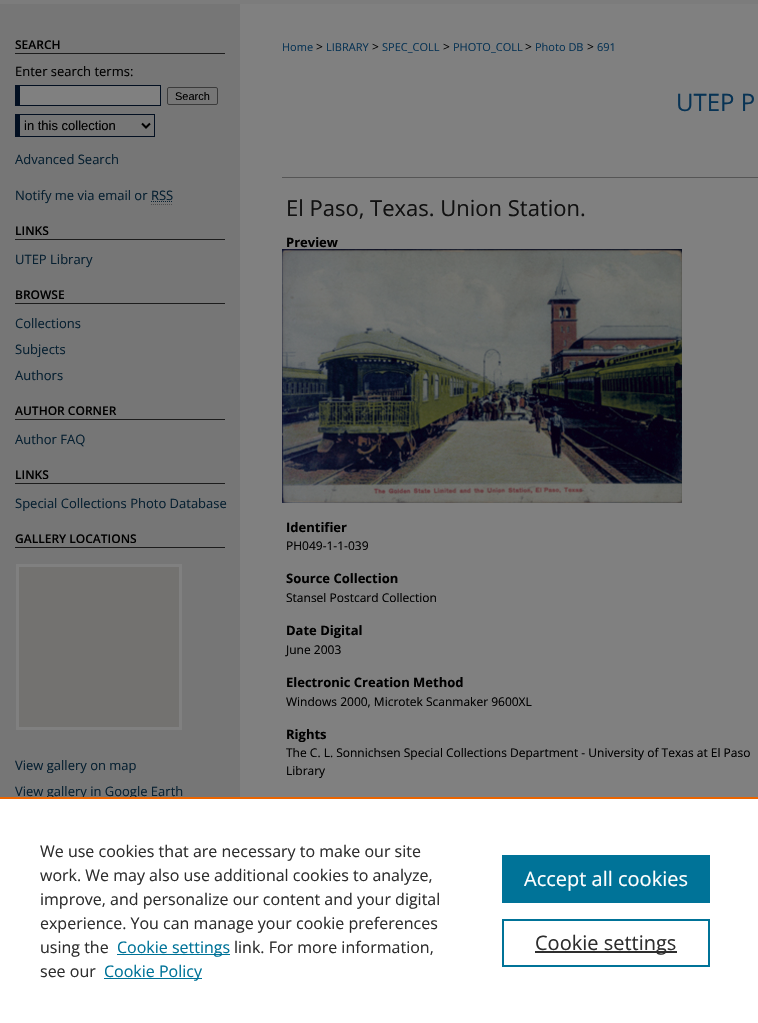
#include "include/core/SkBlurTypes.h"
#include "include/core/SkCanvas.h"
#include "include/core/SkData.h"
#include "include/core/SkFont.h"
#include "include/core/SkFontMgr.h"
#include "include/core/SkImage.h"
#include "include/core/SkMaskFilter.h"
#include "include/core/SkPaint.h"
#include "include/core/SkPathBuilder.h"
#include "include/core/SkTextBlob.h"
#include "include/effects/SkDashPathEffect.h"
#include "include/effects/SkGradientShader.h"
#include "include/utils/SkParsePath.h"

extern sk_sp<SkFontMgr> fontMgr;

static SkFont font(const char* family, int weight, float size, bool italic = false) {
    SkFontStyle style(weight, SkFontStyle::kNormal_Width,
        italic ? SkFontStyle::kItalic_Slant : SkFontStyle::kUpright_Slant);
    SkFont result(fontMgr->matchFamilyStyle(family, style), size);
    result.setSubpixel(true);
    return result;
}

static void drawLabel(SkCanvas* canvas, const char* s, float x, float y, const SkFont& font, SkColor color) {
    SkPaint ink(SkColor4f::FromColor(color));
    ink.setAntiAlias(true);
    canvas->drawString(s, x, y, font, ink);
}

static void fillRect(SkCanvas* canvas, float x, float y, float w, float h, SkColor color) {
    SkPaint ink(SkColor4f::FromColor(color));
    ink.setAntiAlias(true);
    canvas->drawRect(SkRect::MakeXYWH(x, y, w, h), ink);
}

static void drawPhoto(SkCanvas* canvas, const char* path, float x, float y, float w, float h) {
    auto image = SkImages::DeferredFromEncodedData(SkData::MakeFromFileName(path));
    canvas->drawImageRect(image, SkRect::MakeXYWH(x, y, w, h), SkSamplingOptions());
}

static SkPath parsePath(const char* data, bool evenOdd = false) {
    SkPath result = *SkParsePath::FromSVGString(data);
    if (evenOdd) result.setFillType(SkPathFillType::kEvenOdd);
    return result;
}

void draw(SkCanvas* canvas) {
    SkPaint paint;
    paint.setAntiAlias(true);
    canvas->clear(0xFF808080);
    fillRect(canvas, 0, 0, 758, 4, 0xFF7C7C7C);
    fillRect(canvas, 0, 4, 240, 793, 0xFF767676);
    fillRect(canvas, 15, 53, 210, 1, 0xFF1C1C1C);
    SkFont font1 = font("Open Sans", 600, 12);
    drawLabel(canvas, "SEARCH", 15, 49, font1, 0xFF000000);
    SkFont font2 = font("Open Sans", 400, 13);
    drawLabel(canvas, "Enter search terms:", 15, 76, font2, 0xFF000000);
    fillRect(canvas, 20, 86, 140, 19, 0xFF808080);
    fillRect(canvas, 15, 85, 146, 1, 0xFF020F21);
    fillRect(canvas, 160, 85, 1, 21, 0xFF020F21);
    fillRect(canvas, 15, 105, 146, 1, 0xFF020F21);
    fillRect(canvas, 15, 85, 5, 21, 0xFF020F21);
    paint.setStroke(true);
    paint.setStrokeWidth(1);
    paint.setColor(0xFF3B3B3B);
    canvas->drawRoundRect(SkRect::MakeXYWH(167.5f, 87.5f, 50, 17), 1.5f, 1.5f, paint);
    SkFont font3 = font("Liberation Sans", 400, 11);
    drawLabel(canvas, "Search", 175, 100, font3, 0xFF000000);
    fillRect(canvas, 15, 114, 140, 1, 0xFF020F21);
    fillRect(canvas, 154, 114, 1, 23, 0xFF020F21);
    fillRect(canvas, 15, 136, 140, 1, 0xFF020F21);
    fillRect(canvas, 15, 114, 5, 23, 0xFF020F21);
    paint.setStrokeWidth(2);
    paint.setColor(0xFF000000);
    canvas->drawPath(parsePath("M142 123.5L146 127.5L150 123.5"), paint);
    SkFont font4 = font("Liberation Sans", 400, 13);
    drawLabel(canvas, "in this collection", 24, 130, font4, 0xFF000000);
    drawLabel(canvas, "Advanced Search", 15, 164, font2, 0xFF072031);
    drawLabel(canvas, "Notify me via email or RSS", 15, 200, font2, 0xFF072031);
    paint.setStrokeWidth(1);
    paint.setColor(0xFF072031);
    paint.setPathEffect(SkDashPathEffect::Make({{1, 1}}, 0));
    canvas->drawPath(parsePath("M151 201.5H173"), paint);
    paint.setPathEffect(nullptr);
    paint.setColor(0xFF4D4D4D);
    paint.setPathEffect(SkDashPathEffect::Make({{1, 1}}, 0));
    canvas->drawPath(parsePath("M151 204.5H173"), paint);
    paint.setPathEffect(nullptr);
    fillRect(canvas, 15, 239, 210, 1, 0xFF1C1C1C);
    drawLabel(canvas, "LINKS", 15, 235, font1, 0xFF000000);
    drawLabel(canvas, "UTEP Library", 15, 264, font2, 0xFF072031);
    fillRect(canvas, 15, 303, 210, 1, 0xFF1C1C1C);
    drawLabel(canvas, "BROWSE", 15, 299, font1, 0xFF000000);
    drawLabel(canvas, "Collections", 15, 328, font2, 0xFF072031);
    drawLabel(canvas, "Subjects", 15, 354, font2, 0xFF072031);
    drawLabel(canvas, "Authors", 15, 380, font2, 0xFF072031);
    fillRect(canvas, 15, 419, 210, 1, 0xFF1C1C1C);
    drawLabel(canvas, "AUTHOR CORNER", 15, 415, font1, 0xFF000000);
    drawLabel(canvas, "Author FAQ", 15, 444, font2, 0xFF072031);
    fillRect(canvas, 15, 483, 210, 1, 0xFF1C1C1C);
    drawLabel(canvas, "LINKS", 15, 479, font1, 0xFF000000);
    drawLabel(canvas, "Special Collections Photo Database", 15, 508, font2, 0xFF072031);
    fillRect(canvas, 15, 547, 210, 1, 0xFF1C1C1C);
    drawLabel(canvas, "GALLERY LOCATIONS", 15, 543, font1, 0xFF000000);
    paint.setStrokeWidth(3);
    paint.setColor(0xFF808080);
    canvas->drawRect(SkRect::MakeXYWH(17.5f, 565.5f, 163, 163), paint);
    fillRect(canvas, 19, 567, 160, 160, 0xFF737270);
    drawLabel(canvas, "View gallery on map", 15, 770, font2, 0xFF072031);
    drawLabel(canvas, "View gallery in Google Earth", 15, 796, font2, 0xFF072031);
    SkFont font5 = font("Open Sans", 400, 11);
    drawLabel(canvas, "Home", 282, 51, font5, 0xFF083354);
    SkFont font6 = font("Open Sans", 400, 12);
    drawLabel(canvas, ">", 316, 51, font6, 0xFF000000);
    drawLabel(canvas, "LIBRARY", 326, 51, font5, 0xFF083354);
    drawLabel(canvas, ">", 372, 51, font6, 0xFF000000);
    drawLabel(canvas, "SPEC_COLL", 382, 51, font5, 0xFF083354);
    drawLabel(canvas, ">", 443, 51, font6, 0xFF000000);
    drawLabel(canvas, "PHOTO_COLL", 453, 51, font5, 0xFF083354);
    drawLabel(canvas, ">", 525, 51, font6, 0xFF000000);
    drawLabel(canvas, "Photo DB", 535, 51, font5, 0xFF083354);
    drawLabel(canvas, ">", 587, 51, font6, 0xFF000000);
    drawLabel(canvas, "691", 597, 51, font5, 0xFF083354);
    SkFont font7 = font("Open Sans", 400, 24);
    drawLabel(canvas, "UTEP P", 676, 111, font7, 0xFF083354);
    fillRect(canvas, 282, 177, 476, 1, 0xFF555555);
    SkFont font8 = font("Open Sans", 400, 22);
    drawLabel(canvas, "El Paso, Texas. Union Station.", 286, 216, font8, 0xFF111111);
    SkFont font9 = font("Open Sans", 700, 13);
    drawLabel(canvas, "Preview", 286, 247, font9, 0xFF000000);
    drawPhoto(canvas, "assets/img1.png", 282, 249, 400, 254);
    drawLabel(canvas, "Identifier", 286, 532, font9, 0xFF000000);
    drawLabel(canvas, "PH049-1-1-039", 286, 550, font6, 0xFF000000);
    drawLabel(canvas, "Source Collection", 286, 583, font9, 0xFF000000);
    drawLabel(canvas, "Stansel Postcard Collection", 286, 602, font6, 0xFF000000);
    drawLabel(canvas, "Date Digital", 286, 635, font9, 0xFF000000);
    drawLabel(canvas, "June 2003", 286, 654, font6, 0xFF000000);
    drawLabel(canvas, "Electronic Creation Method", 286, 687, font9, 0xFF000000);
    drawLabel(canvas, "Windows 2000, Microtek Scanmaker 9600XL", 286, 706, font6, 0xFF000000);
    drawLabel(canvas, "Rights", 286, 739, font9, 0xFF000000);
    drawLabel(canvas, "The C. L. Sonnichsen Special Collections Department - University of Texas at El Paso", 286, 757, font6, 0xFF000000);
    drawLabel(canvas, "Library", 286, 775, font6, 0xFF000000);
    fillRect(canvas, 0, 799, 758, 224, 0xFFFFFFFF);
    fillRect(canvas, 0, 797, 758, 2, 0xFFEB6500);
    SkFont font10 = font("Open Sans", 400, 16);
    drawLabel(canvas, "We use cookies that are necessary to make our site", 40, 857, font10, 0xFF2E2E2E);
    drawLabel(canvas, "work. We may also use additional cookies to analyze,", 40, 881, font10, 0xFF2E2E2E);
    drawLabel(canvas, "improve, and personalize our content and your digital", 40, 905, font10, 0xFF2E2E2E);
    drawLabel(canvas, "experience. You can manage your cookie preferences", 40, 929, font10, 0xFF2E2E2E);
    drawLabel(canvas, "using the", 40, 953, font10, 0xFF2E2E2E);
    fillRect(canvas, 117, 954, 113, 1, 0xFF007398);
    drawLabel(canvas, "Cookie settings", 117, 953, font10, 0xFF007398);
    drawLabel(canvas, "link. For more information,", 234, 953, font10, 0xFF2E2E2E);
    drawLabel(canvas, "see our", 40, 977, font10, 0xFF2E2E2E);
    fillRect(canvas, 104, 978, 98, 1, 0xFF007398);
    drawLabel(canvas, "Cookie Policy", 104, 977, font10, 0xFF007398);
    fillRect(canvas, 502, 855, 208, 48, 0xFF007398);
    SkFont font11 = font("Open Sans", 400, 20);
    drawLabel(canvas, "Accept all cookies", 524, 886, font11, 0xFFFFFFFF);
    paint.setStrokeWidth(2);
    paint.setColor(0xFF007398);
    canvas->drawRect(SkRect::MakeXYWH(503, 920, 206, 46), paint);
    fillRect(canvas, 535, 951, 142, 2, 0xFF2E2E2E);
    drawLabel(canvas, "Cookie settings", 535, 950, font11, 0xFF2E2E2E);
}
